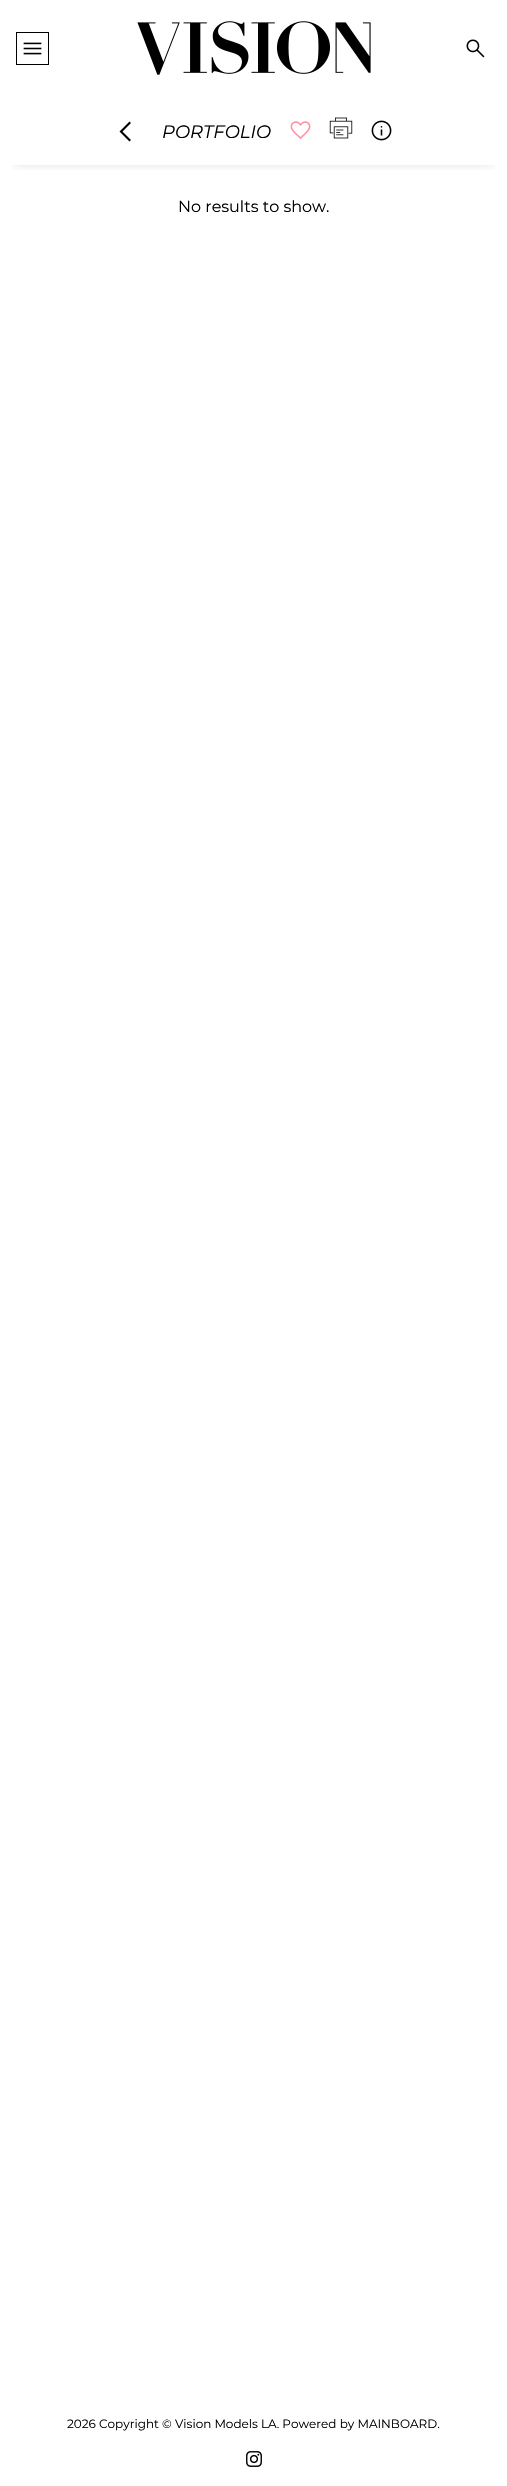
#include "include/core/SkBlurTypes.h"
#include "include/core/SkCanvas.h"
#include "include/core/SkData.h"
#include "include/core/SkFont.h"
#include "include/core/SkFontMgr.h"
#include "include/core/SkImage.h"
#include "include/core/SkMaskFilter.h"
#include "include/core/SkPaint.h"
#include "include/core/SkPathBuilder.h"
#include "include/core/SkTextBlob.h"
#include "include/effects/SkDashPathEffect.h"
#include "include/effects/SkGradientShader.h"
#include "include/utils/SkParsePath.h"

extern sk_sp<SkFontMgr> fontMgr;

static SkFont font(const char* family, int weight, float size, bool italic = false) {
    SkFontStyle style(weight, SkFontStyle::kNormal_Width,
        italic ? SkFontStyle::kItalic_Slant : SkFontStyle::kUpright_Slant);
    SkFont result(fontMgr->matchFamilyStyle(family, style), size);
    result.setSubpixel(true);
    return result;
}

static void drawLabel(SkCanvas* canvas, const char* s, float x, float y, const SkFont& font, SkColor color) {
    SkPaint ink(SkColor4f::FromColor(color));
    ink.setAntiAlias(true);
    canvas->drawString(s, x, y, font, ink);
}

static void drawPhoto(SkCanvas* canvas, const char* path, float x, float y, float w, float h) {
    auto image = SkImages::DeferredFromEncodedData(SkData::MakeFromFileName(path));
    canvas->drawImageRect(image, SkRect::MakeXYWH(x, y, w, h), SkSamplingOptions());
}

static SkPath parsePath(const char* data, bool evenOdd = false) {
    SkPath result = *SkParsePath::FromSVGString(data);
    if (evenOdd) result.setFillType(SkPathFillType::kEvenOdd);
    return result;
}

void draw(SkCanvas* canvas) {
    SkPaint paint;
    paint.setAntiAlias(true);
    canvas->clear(0xFFFFFFFF);
    paint.setStroke(true);
    paint.setStrokeWidth(1);
    paint.setColor(0xFF000000);
    canvas->drawRect(SkRect::MakeXYWH(16.5f, 32.5f, 32, 32), paint);
    drawPhoto(canvas, "assets/img1.png", 23, 42, 19, 13);
    drawPhoto(canvas, "assets/img2.png", 137, 21, 234, 54);
    drawPhoto(canvas, "assets/img3.png", 466, 39, 19, 19);
    canvas->save();
    canvas->clipRect(SkRect::MakeXYWH(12, 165, 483, 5));
    paint.setStroke(false);
    paint.setColor(0x33000000);
    paint.setMaskFilter(SkMaskFilter::MakeBlur(kNormal_SkBlurStyle, 7));
    canvas->drawRect(SkRect::MakeXYWH(14, 120, 479, 41), paint);
    paint.setMaskFilter(nullptr);
    canvas->restore();
    paint.setColor(0xFF000000);
    canvas->drawPath(parsePath("M129.5 141.5L119.5 131.5L129.5 121.5L131 123L122.5 131.5L131 140Z"), paint);
    SkFont font1 = font("Montserrat", 400, 18, true);
    drawLabel(canvas, "PORTFOLIO", 162, 138, font1, 0xFF000000);
    drawPhoto(canvas, "assets/img4.png", 290, 121, 21, 18);
    drawPhoto(canvas, "assets/img5.png", 329, 117, 24, 22);
    drawPhoto(canvas, "assets/img6.png", 371, 120, 21, 21);
    SkFont font2 = font("Montserrat", 400, 16);
    drawLabel(canvas, "No results to show.", 178, 212, font2, 0xFF000000);
    SkFont font3 = font("Montserrat", 400, 12);
    drawLabel(canvas, "2026 Copyright © Vision Models LA. Powered by MAINBOARD.", 67, 2428, font3, 0xFF000000);
    drawPhoto(canvas, "assets/img7.png", 246, 2451, 16, 16);
}
